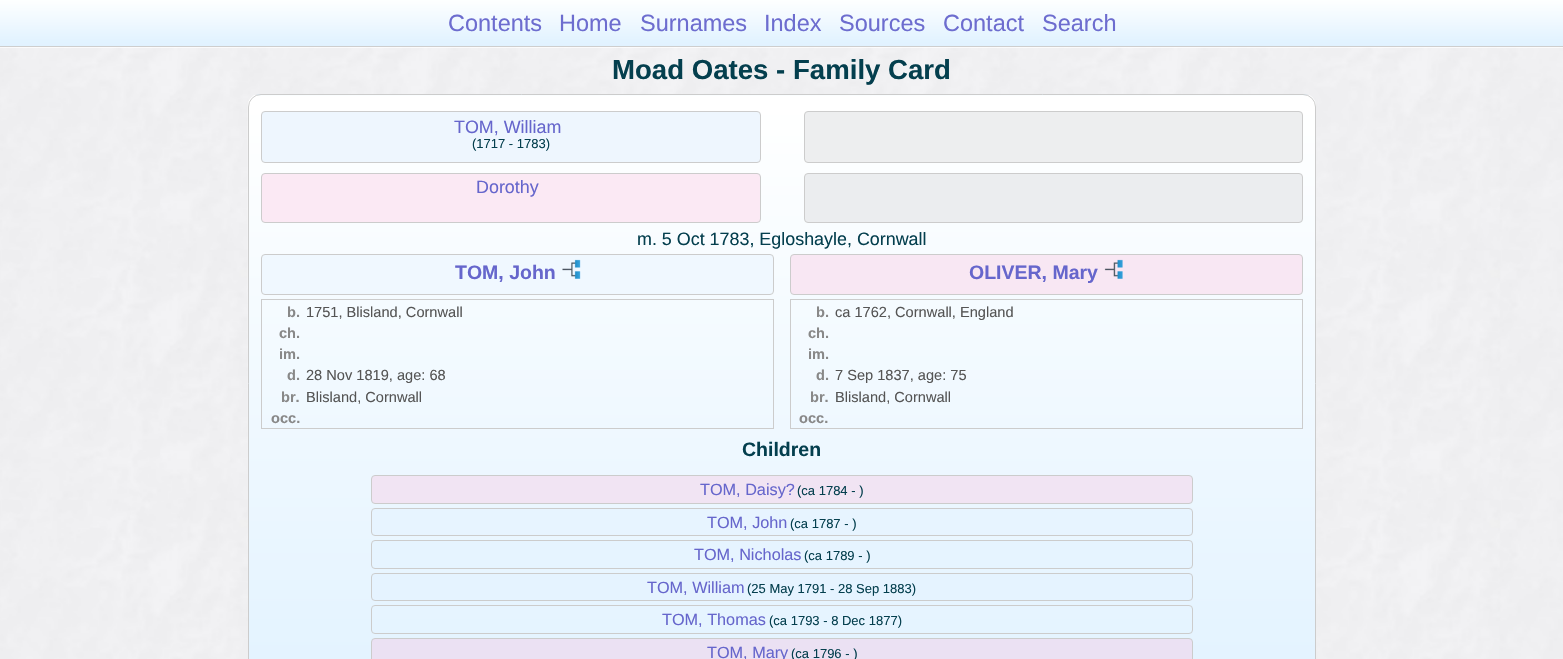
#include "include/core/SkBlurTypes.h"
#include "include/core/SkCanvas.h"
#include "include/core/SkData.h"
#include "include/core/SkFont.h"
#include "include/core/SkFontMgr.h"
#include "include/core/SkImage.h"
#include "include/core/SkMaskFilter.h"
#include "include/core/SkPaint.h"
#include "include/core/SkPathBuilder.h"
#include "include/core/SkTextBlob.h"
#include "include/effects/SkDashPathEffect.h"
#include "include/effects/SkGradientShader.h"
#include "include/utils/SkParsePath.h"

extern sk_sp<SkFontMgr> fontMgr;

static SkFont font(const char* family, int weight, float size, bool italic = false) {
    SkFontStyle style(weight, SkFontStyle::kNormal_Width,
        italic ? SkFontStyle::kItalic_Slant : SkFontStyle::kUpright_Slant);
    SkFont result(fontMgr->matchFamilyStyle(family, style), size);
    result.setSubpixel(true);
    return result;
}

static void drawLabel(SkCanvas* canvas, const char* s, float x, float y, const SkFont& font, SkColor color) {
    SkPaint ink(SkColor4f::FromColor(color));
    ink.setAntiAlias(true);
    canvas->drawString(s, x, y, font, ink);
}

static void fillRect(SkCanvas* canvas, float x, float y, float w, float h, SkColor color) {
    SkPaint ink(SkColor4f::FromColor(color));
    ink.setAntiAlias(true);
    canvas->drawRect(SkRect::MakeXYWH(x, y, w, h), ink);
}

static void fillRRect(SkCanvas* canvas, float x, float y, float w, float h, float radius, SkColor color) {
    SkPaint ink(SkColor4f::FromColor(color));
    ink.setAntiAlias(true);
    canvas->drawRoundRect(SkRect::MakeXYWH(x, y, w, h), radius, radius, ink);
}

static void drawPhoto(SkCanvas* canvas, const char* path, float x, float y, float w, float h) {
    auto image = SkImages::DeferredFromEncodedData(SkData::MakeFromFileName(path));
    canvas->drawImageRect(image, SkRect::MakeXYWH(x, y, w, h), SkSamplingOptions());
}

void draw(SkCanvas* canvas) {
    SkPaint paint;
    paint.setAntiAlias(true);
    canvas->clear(0xFFFFFFFF);
    drawPhoto(canvas, "assets/img1.png", 0, 0, 1563, 659);
    fillRect(canvas, 0, 0, 1563, 46, 0xF2DEF1FF);
    drawPhoto(canvas, "assets/img2.png", 0, 0, 1563, 48);
    fillRect(canvas, 0, 0, 1563, 43, 0xF2DEF1FF);
    drawPhoto(canvas, "assets/img3.png", 0, 0, 1563, 48);
    fillRect(canvas, 0, 46, 1563, 1, 0xFFCECECE);
    SkFont font1 = font("Liberation Sans", 400, 23.5f);
    drawLabel(canvas, "Contents", 448, 31, font1, 0xFF6D6DCF);
    drawLabel(canvas, "Home", 559, 31, font1, 0xFF6D6DCF);
    drawLabel(canvas, "Surnames", 640, 31, font1, 0xFF6D6DCF);
    drawLabel(canvas, "Index", 764, 31, font1, 0xFF6D6DCF);
    drawLabel(canvas, "Sources", 839, 31, font1, 0xFF6D6DCF);
    drawLabel(canvas, "Contact", 943, 31, font1, 0xFF6D6DCF);
    drawLabel(canvas, "Search", 1042, 31, font1, 0xFF6D6DCF);
    SkFont font2 = font("Liberation Sans", 700, 27.6f);
    drawLabel(canvas, "Moad Oates - Family Card", 612, 79, font2, 0xFF043F4E);
    fillRRect(canvas, 248, 94, 1068, 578, 13, 0xFFDEF1FF);
    drawPhoto(canvas, "assets/img4.png", 247, 95, 1069, 564);
    paint.setStroke(true);
    paint.setStrokeWidth(1);
    paint.setColor(0xFFCCCCCC);
    canvas->drawRoundRect(SkRect::MakeXYWH(248.5f, 94.5f, 1067, 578), 12.5f, 12.5f, paint);
    paint.setStroke(false);
    paint.setColor(0xFFEEF6FE);
    canvas->drawRoundRect(SkRect::MakeXYWH(261.5f, 111.5f, 499, 51), 3.5f, 3.5f, paint);
    paint.setStroke(true);
    paint.setColor(0xFFCCCCCC);
    canvas->drawRoundRect(SkRect::MakeXYWH(261.5f, 111.5f, 499, 51), 3.5f, 3.5f, paint);
    SkFont font3 = font("Liberation Sans", 400, 17.9f);
    drawLabel(canvas, "TOM, William", 454, 133, font3, 0xFF6666CC);
    SkFont font4 = font("Liberation Sans", 400, 13);
    drawLabel(canvas, "(1717 - 1783)", 472, 148, font4, 0xFF043F4E);
    paint.setStroke(false);
    paint.setColor(0xFFEDEEEF);
    canvas->drawRoundRect(SkRect::MakeXYWH(804.5f, 111.5f, 498, 51), 3.5f, 3.5f, paint);
    paint.setStroke(true);
    paint.setColor(0xFFCCCCCC);
    canvas->drawRoundRect(SkRect::MakeXYWH(804.5f, 111.5f, 498, 51), 3.5f, 3.5f, paint);
    paint.setStroke(false);
    paint.setColor(0xFFFBE9F4);
    canvas->drawRoundRect(SkRect::MakeXYWH(261.5f, 173.5f, 499, 49), 3.5f, 3.5f, paint);
    paint.setStroke(true);
    paint.setColor(0xFFCCCCCC);
    canvas->drawRoundRect(SkRect::MakeXYWH(261.5f, 173.5f, 499, 49), 3.5f, 3.5f, paint);
    drawLabel(canvas, "Dorothy", 476, 193, font3, 0xFF6666CC);
    paint.setStroke(false);
    paint.setColor(0xFFEBEDEF);
    canvas->drawRoundRect(SkRect::MakeXYWH(804.5f, 173.5f, 498, 49), 3.5f, 3.5f, paint);
    paint.setStroke(true);
    paint.setColor(0xFFCCCCCC);
    canvas->drawRoundRect(SkRect::MakeXYWH(804.5f, 173.5f, 498, 49), 3.5f, 3.5f, paint);
    drawLabel(canvas, "m. 5 Oct 1783, Egloshayle, Cornwall", 637, 245, font3, 0xFF043F4E);
    paint.setStroke(false);
    paint.setColor(0xFFF0F8FF);
    canvas->drawRoundRect(SkRect::MakeXYWH(261.5f, 254.5f, 512, 40), 3.5f, 3.5f, paint);
    paint.setStroke(true);
    paint.setColor(0xFFCCCCCC);
    canvas->drawRoundRect(SkRect::MakeXYWH(261.5f, 254.5f, 512, 40), 3.5f, 3.5f, paint);
    SkFont font5 = font("Liberation Sans", 700, 19.5f);
    drawLabel(canvas, "TOM, John", 455, 279, font5, 0xFF6666CC);
    drawPhoto(canvas, "assets/img5.png", 562, 259, 19, 20);
    paint.setStroke(false);
    paint.setColor(0xFFF8E7F3);
    canvas->drawRoundRect(SkRect::MakeXYWH(790.5f, 254.5f, 512, 40), 3.5f, 3.5f, paint);
    paint.setStroke(true);
    paint.setColor(0xFFCCCCCC);
    canvas->drawRoundRect(SkRect::MakeXYWH(790.5f, 254.5f, 512, 40), 3.5f, 3.5f, paint);
    drawLabel(canvas, "OLIVER, Mary", 969, 279, font5, 0xFF6666CC);
    drawPhoto(canvas, "assets/img6.png", 1104, 259, 19, 20);
    canvas->drawRect(SkRect::MakeXYWH(261.5f, 299.5f, 512, 129), paint);
    SkFont font6 = font("Liberation Sans", 700, 14.6f);
    drawLabel(canvas, "b.", 287, 317, font6, 0xFF888888);
    SkFont font7 = font("Liberation Sans", 400, 14.6f);
    drawLabel(canvas, "1751, Blisland, Cornwall", 306, 317, font7, 0xFF555555);
    drawLabel(canvas, "ch.", 279, 338, font6, 0xFF888888);
    drawLabel(canvas, "im.", 279, 359, font6, 0xFF888888);
    drawLabel(canvas, "d.", 287, 380, font6, 0xFF888888);
    drawLabel(canvas, "28 Nov 1819, age: 68", 306, 380, font7, 0xFF555555);
    drawLabel(canvas, "br.", 281, 402, font6, 0xFF888888);
    drawLabel(canvas, "Blisland, Cornwall", 306, 402, font7, 0xFF555555);
    drawLabel(canvas, "occ.", 271, 423, font6, 0xFF888888);
    canvas->drawRect(SkRect::MakeXYWH(790.5f, 299.5f, 512, 129), paint);
    drawLabel(canvas, "b.", 816, 317, font6, 0xFF888888);
    drawLabel(canvas, "ca 1762, Cornwall, England", 835, 317, font7, 0xFF555555);
    drawLabel(canvas, "ch.", 808, 338, font6, 0xFF888888);
    drawLabel(canvas, "im.", 808, 359, font6, 0xFF888888);
    drawLabel(canvas, "d.", 816, 380, font6, 0xFF888888);
    drawLabel(canvas, "7 Sep 1837, age: 75", 835, 380, font7, 0xFF555555);
    drawLabel(canvas, "br.", 810, 402, font6, 0xFF888888);
    drawLabel(canvas, "Blisland, Cornwall", 835, 402, font7, 0xFF555555);
    drawLabel(canvas, "occ.", 799, 423, font6, 0xFF888888);
    drawLabel(canvas, "Children", 742, 456, font5, 0xFF043F4E);
    paint.setStroke(false);
    paint.setColor(0xFFF1E4F3);
    canvas->drawRoundRect(SkRect::MakeXYWH(371.5f, 475.5f, 821, 28), 3.5f, 3.5f, paint);
    paint.setStroke(true);
    paint.setColor(0xFFCCCCCC);
    canvas->drawRoundRect(SkRect::MakeXYWH(371.5f, 475.5f, 821, 28), 3.5f, 3.5f, paint);
    SkFont font8 = font("Liberation Sans", 400, 16.25f);
    drawLabel(canvas, "TOM, Daisy?", 700, 495, font8, 0xFF6666CC);
    drawLabel(canvas, "(ca 1784 - )", 797, 495, font4, 0xFF043F4E);
    paint.setStroke(false);
    paint.setColor(0xFFE7F4FF);
    canvas->drawRoundRect(SkRect::MakeXYWH(371.5f, 508.5f, 821, 27), 3.5f, 3.5f, paint);
    paint.setStroke(true);
    paint.setColor(0xFFCCCCCC);
    canvas->drawRoundRect(SkRect::MakeXYWH(371.5f, 508.5f, 821, 27), 3.5f, 3.5f, paint);
    drawLabel(canvas, "TOM, John", 707, 528, font8, 0xFF6666CC);
    drawLabel(canvas, "(ca 1787 - )", 790, 528, font4, 0xFF043F4E);
    paint.setStroke(false);
    paint.setColor(0xFFE6F4FF);
    canvas->drawRoundRect(SkRect::MakeXYWH(371.5f, 540.5f, 821, 28), 3.5f, 3.5f, paint);
    paint.setStroke(true);
    paint.setColor(0xFFCCCCCC);
    canvas->drawRoundRect(SkRect::MakeXYWH(371.5f, 540.5f, 821, 28), 3.5f, 3.5f, paint);
    drawLabel(canvas, "TOM, Nicholas", 694, 560, font8, 0xFF6666CC);
    drawLabel(canvas, "(ca 1789 - )", 804, 560, font4, 0xFF043F4E);
    paint.setStroke(false);
    paint.setColor(0xFFE5F3FF);
    canvas->drawRoundRect(SkRect::MakeXYWH(371.5f, 573.5f, 821, 27), 3.5f, 3.5f, paint);
    paint.setStroke(true);
    paint.setColor(0xFFCCCCCC);
    canvas->drawRoundRect(SkRect::MakeXYWH(371.5f, 573.5f, 821, 27), 3.5f, 3.5f, paint);
    drawLabel(canvas, "TOM, William", 647, 593, font8, 0xFF6666CC);
    drawLabel(canvas, "(25 May 1791 - 28 Sep 1883)", 747, 593, font4, 0xFF043F4E);
    canvas->drawRoundRect(SkRect::MakeXYWH(371.5f, 605.5f, 821, 28), 3.5f, 3.5f, paint);
    drawLabel(canvas, "TOM, Thomas", 662, 625, font8, 0xFF6666CC);
    drawLabel(canvas, "(ca 1793 - 8 Dec 1877)", 769, 625, font4, 0xFF043F4E);
    paint.setStroke(false);
    paint.setColor(0xFFEBE1F3);
    canvas->drawRoundRect(SkRect::MakeXYWH(371.5f, 638.5f, 821, 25), 3.5f, 3.5f, paint);
    paint.setStroke(true);
    paint.setColor(0xFFCCCCCC);
    canvas->drawRoundRect(SkRect::MakeXYWH(371.5f, 638.5f, 821, 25), 3.5f, 3.5f, paint);
    drawLabel(canvas, "TOM, Mary", 707, 658, font8, 0xFF6666CC);
    drawLabel(canvas, "(ca 1796 - )", 791, 658, font4, 0xFF043F4E);
}
